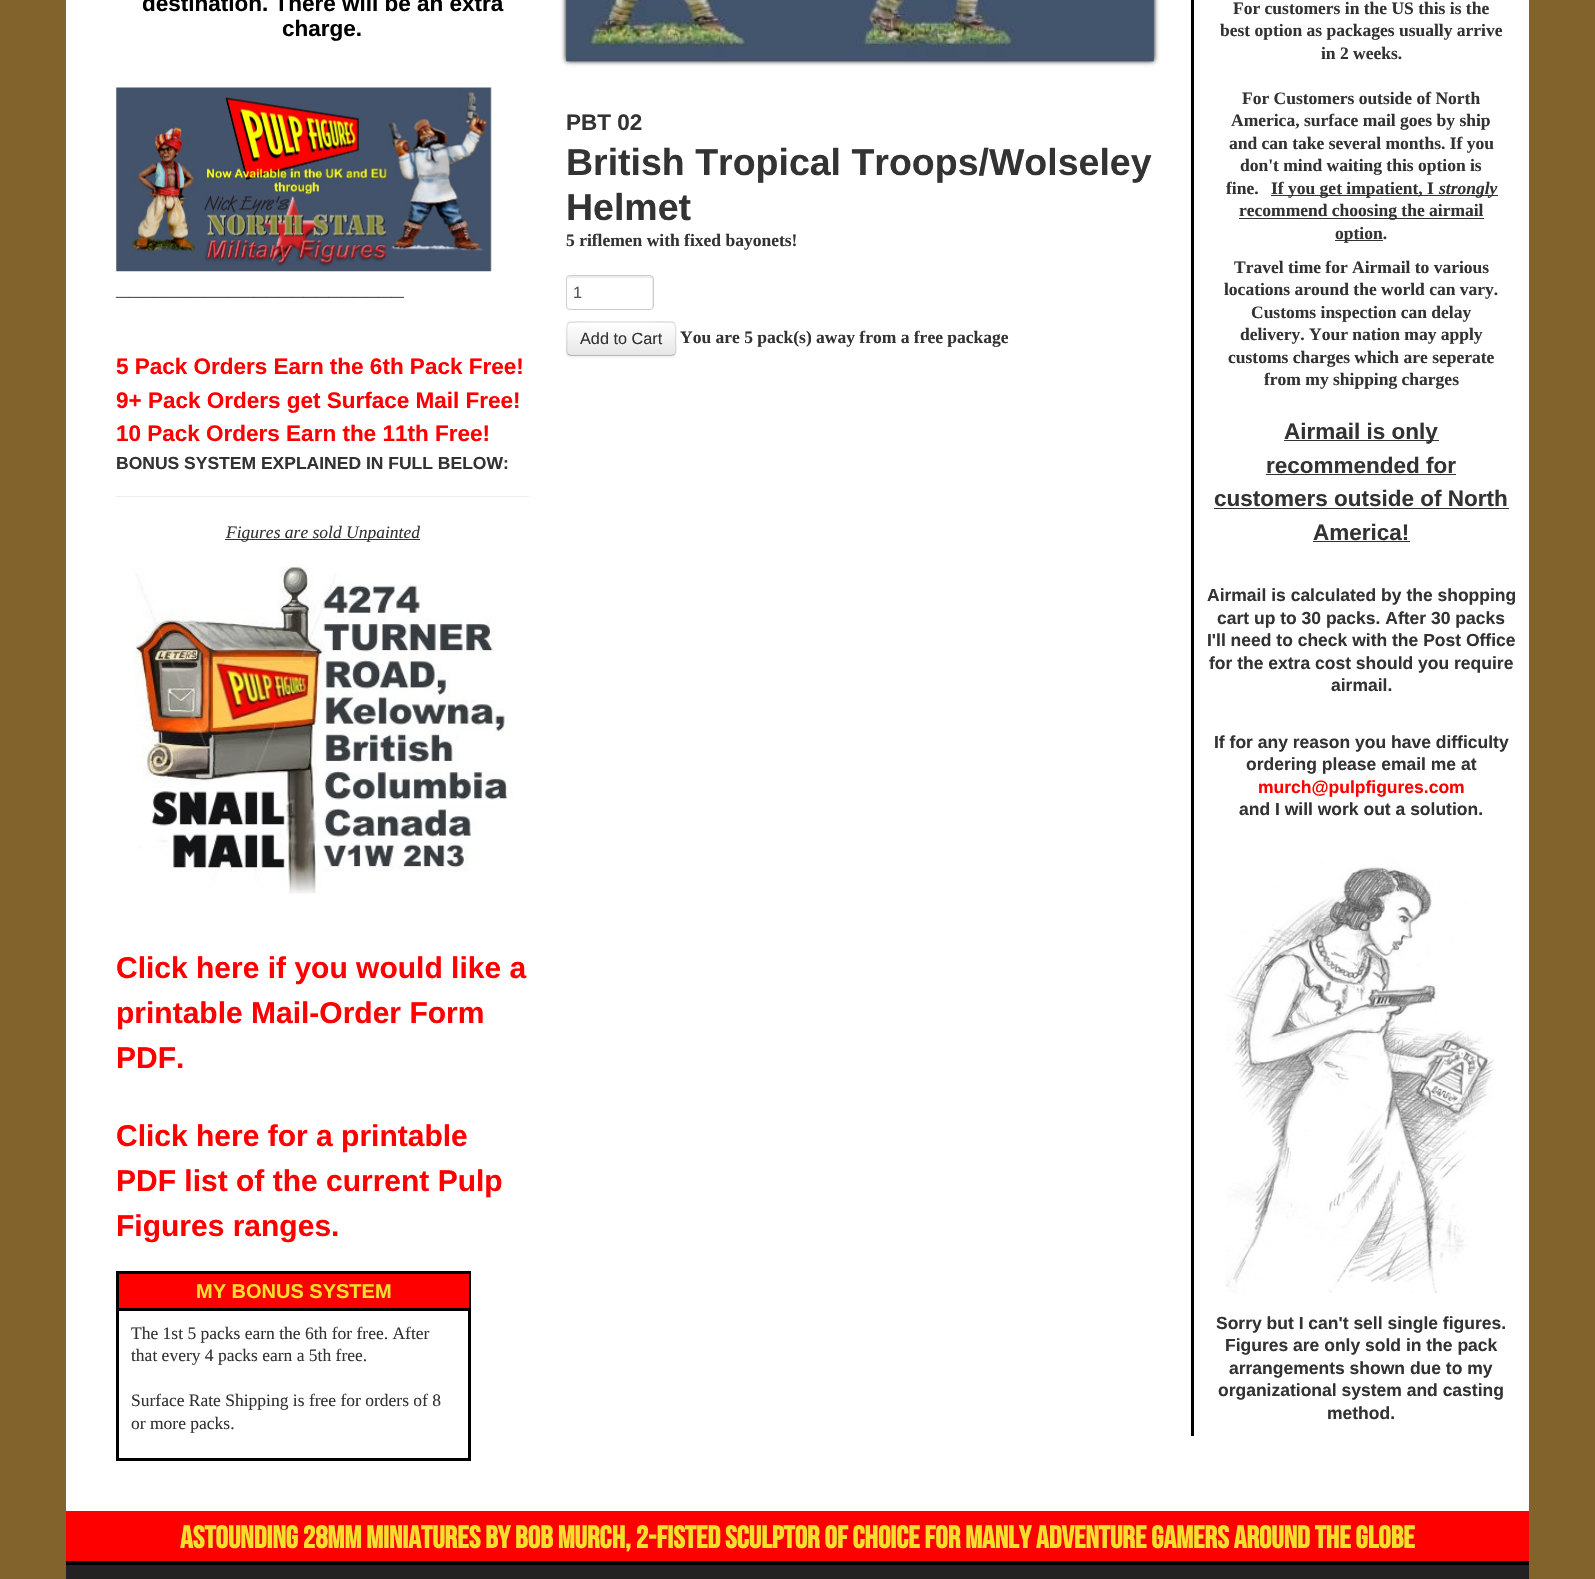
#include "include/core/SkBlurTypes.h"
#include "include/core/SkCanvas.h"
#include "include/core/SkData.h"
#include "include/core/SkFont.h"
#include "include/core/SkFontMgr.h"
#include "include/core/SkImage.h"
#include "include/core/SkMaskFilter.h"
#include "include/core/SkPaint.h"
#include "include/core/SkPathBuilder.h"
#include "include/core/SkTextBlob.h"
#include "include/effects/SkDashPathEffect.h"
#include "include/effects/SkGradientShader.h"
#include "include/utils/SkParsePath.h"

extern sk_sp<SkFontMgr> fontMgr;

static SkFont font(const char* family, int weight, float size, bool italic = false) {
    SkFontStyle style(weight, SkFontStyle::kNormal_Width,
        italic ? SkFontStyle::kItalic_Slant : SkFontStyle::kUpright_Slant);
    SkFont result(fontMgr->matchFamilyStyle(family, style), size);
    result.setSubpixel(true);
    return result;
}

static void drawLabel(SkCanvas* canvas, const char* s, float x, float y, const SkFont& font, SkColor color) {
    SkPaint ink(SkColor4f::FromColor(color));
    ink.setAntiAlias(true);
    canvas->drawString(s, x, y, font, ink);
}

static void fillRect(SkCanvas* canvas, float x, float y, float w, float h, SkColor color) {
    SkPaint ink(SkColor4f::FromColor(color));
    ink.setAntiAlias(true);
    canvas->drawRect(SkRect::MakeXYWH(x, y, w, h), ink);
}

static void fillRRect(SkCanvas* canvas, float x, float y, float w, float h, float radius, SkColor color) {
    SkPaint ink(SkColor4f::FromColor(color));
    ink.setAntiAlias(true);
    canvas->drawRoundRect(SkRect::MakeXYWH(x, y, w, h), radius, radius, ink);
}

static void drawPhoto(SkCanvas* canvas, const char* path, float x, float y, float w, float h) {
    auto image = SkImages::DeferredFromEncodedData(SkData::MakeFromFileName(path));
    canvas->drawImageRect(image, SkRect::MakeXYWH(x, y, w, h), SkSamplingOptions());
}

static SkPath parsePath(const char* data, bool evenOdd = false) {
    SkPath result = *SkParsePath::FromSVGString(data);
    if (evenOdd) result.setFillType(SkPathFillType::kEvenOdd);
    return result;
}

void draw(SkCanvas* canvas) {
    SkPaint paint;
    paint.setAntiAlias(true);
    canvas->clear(0xFF82632C);
    fillRect(canvas, 66, 0, 1463, 1511, 0xFFFFFFFF);
    SkFont font1 = font("Liberation Sans", 700, 22.5f);
    drawLabel(canvas, "destination. There will be an extra", 142, 11, font1, 0xFF000000);
    drawLabel(canvas, "charge.", 282, 36, font1, 0xFF000000);
    drawPhoto(canvas, "assets/img1.png", 116, 87, 376, 185);
    drawLabel(canvas, "_______________________", 116, 295, font1, 0xFF333333);
    drawLabel(canvas, "5 Pack Orders Earn the 6th Pack Free!", 116, 374, font1, 0xFFFF0000);
    drawLabel(canvas, "9+ Pack Orders get Surface Mail Free!", 116, 408, font1, 0xFFFF0000);
    drawLabel(canvas, "10 Pack Orders Earn the 11th Free!", 116, 441, font1, 0xFFFF0000);
    SkFont font2 = font("Liberation Sans", 700, 17.5f);
    drawLabel(canvas, "BONUS SYSTEM EXPLAINED IN FULL BELOW:", 116, 469, font2, 0xFF333333);
    fillRect(canvas, 116, 496, 413, 1, 0xFFEEEEEE);
    fillRect(canvas, 225, 539, 195, 1, 0xFF333333);
    SkFont font3 = font("Liberation Serif", 400, 17.5f, true);
    drawLabel(canvas, "Figures are sold Unpainted", 226, 538, font3, 0xFF333333);
    drawPhoto(canvas, "assets/img2.png", 134, 564, 379, 330);
    SkFont font4 = font("Liberation Sans", 700, 30);
    drawLabel(canvas, "Click here if you would like a", 116, 978, font4, 0xFFFF0000);
    drawLabel(canvas, "printable Mail-Order Form", 116, 1023, font4, 0xFFFF0000);
    drawLabel(canvas, "PDF.", 116, 1068, font4, 0xFFFF0000);
    drawLabel(canvas, "Click here for a printable", 116, 1146, font4, 0xFFFF0000);
    drawLabel(canvas, "PDF list of the current Pulp", 116, 1191, font4, 0xFFFF0000);
    drawLabel(canvas, "Figures ranges.", 116, 1236, font4, 0xFFFF0000);
    paint.setStroke(true);
    paint.setStrokeWidth(3);
    paint.setColor(0xFF000000);
    canvas->drawRect(SkRect::MakeXYWH(117.5f, 1272.5f, 352, 187), paint);
    fillRect(canvas, 119, 1274, 350, 34, 0xFFFE0000);
    fillRect(canvas, 119, 1308, 350, 3, 0xFF000000);
    SkFont font5 = font("Liberation Sans", 700, 20);
    drawLabel(canvas, "MY BONUS SYSTEM", 196, 1298, font5, 0xFFF4DF2E);
    SkFont font6 = font("Liberation Serif", 400, 17.5f);
    drawLabel(canvas, "The 1st 5 packs earn the 6th for free. After", 131, 1339, font6, 0xFF333333);
    drawLabel(canvas, "that every 4 packs earn a 5th free.", 131, 1361, font6, 0xFF333333);
    drawLabel(canvas, "Surface Rate Shipping is free for orders of 8", 131, 1406, font6, 0xFF333333);
    drawLabel(canvas, "or more packs.", 131, 1429, font6, 0xFF333333);
    paint.setStroke(false);
    paint.setMaskFilter(SkMaskFilter::MakeBlur(kNormal_SkBlurStyle, 2.5f));
    canvas->drawRect(SkRect::MakeXYWH(566, -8, 588, 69), paint);
    paint.setMaskFilter(nullptr);
    drawPhoto(canvas, "assets/img3.png", 566, 0, 588, 62);
    drawLabel(canvas, "PBT 02", 566, 130, font1, 0xFF333333);
    SkFont font7 = font("Liberation Sans", 700, 37.5f);
    drawLabel(canvas, "British Tropical Troops/Wolseley", 566, 175, font7, 0xFF333333);
    drawLabel(canvas, "Helmet", 566, 220, font7, 0xFF333333);
    SkFont font8 = font("Liberation Serif", 700, 17.5f);
    drawLabel(canvas, "5 riflemen with fixed bayonets!", 566, 246, font8, 0xFF333333);
    paint.setColor(0xFFECECEC);
    canvas->drawPath(parsePath("M570 278H637C654 278 652 275 652 289V309C654 307 653 295 653 292C653 273 657 276 637 276H584C578 276 568 272 568 280C568 279 569 278 570 278Z"), paint);
    paint.setStroke(true);
    paint.setStrokeWidth(1);
    paint.setColor(0xFFCCCCCC);
    canvas->drawRoundRect(SkRect::MakeXYWH(566.5f, 275.5f, 87, 34), 3.5f, 3.5f, paint);
    SkFont font9 = font("Liberation Sans", 400, 16.25f);
    drawLabel(canvas, "1", 573, 298, font9, 0xFF555555);
    paint.setStroke(false);
    paint.setColor(0x0D000000);
    paint.setMaskFilter(SkMaskFilter::MakeBlur(kNormal_SkBlurStyle, 1));
    canvas->drawRoundRect(SkRect::MakeXYWH(566, 323, 110, 35), 5, 5, paint);
    paint.setMaskFilter(nullptr);
    fillRRect(canvas, 566, 321, 110, 35, 5, 0xFFF5F5F5);
    canvas->save();
    canvas->clipPath(parsePath("M571 321H671C674 321 676 323 676 326V351C676 354 674 356 671 356H571C568 356 566 354 566 351V326C566 323 568 321 571 321Z"), true);
    {
        const SkColor colors[] = {0xFFFFFFFF, 0xFFE6E6E6};
        const float stops[] = {0, 1};
        const SkPoint ends[] = {{621, 323}, {621, 355}};
        paint.setShader(SkGradientShader::MakeLinear(ends, colors, stops, 2, SkTileMode::kClamp));
        paint.setAlpha(255);
    }
    canvas->drawRect(SkRect::MakeXYWH(566, 323, 110, 32), paint);
    canvas->restore();
    paint.setStroke(true);
    paint.setStrokeWidth(1.2f);
    paint.setShader(nullptr);
    paint.setColor(0x40000000);
    canvas->drawPath(parsePath("M674.5 354.5L671.5 355.5H571L568 354.5"), paint);
    paint.setColor(0x1A000000);
    canvas->drawPath(parsePath("M568 354.5C565.5 351.5 567 346 567 343C567 318.5 563 322 588 322H654.5C679.5 322 675.5 318.5 675.5 343C675.5 346 677 351.5 674.5 354.5"), paint);
    drawLabel(canvas, "Add to Cart", 580, 344, font9, 0xFF333333);
    drawLabel(canvas, "You are 5 pack(s) away from a free package", 680, 343, font8, 0xFF333333);
    fillRect(canvas, 1191, 0, 3, 1436, 0xFF000000);
    drawLabel(canvas, "For customers in the US this is the", 1233, 14, font8, 0xFF333333);
    drawLabel(canvas, "best option as packages usually arrive", 1220, 36, font8, 0xFF333333);
    drawLabel(canvas, "in 2 weeks.", 1321, 59, font8, 0xFF333333);
    drawLabel(canvas, "For Customers outside of North", 1242, 104, font8, 0xFF333333);
    drawLabel(canvas, "America, surface mail goes by ship", 1231, 126, font8, 0xFF333333);
    drawLabel(canvas, "and can take several months. If you", 1229, 149, font8, 0xFF333333);
    drawLabel(canvas, "don't mind waiting this option is", 1240, 171, font8, 0xFF333333);
    drawLabel(canvas, "fine.", 1226, 194, font8, 0xFF333333);
    fillRect(canvas, 1271, 195, 227, 1, 0xFF333333);
    drawLabel(canvas, "If you get impatient, I", 1271, 194, font8, 0xFF333333);
    SkFont font10 = font("Liberation Serif", 700, 17.5f, true);
    drawLabel(canvas, "strongly", 1439, 194, font10, 0xFF333333);
    fillRect(canvas, 1239, 218, 245, 1, 0xFF333333);
    drawLabel(canvas, "recommend choosing the airmail", 1239, 216, font8, 0xFF333333);
    fillRect(canvas, 1335, 240, 48, 1, 0xFF333333);
    drawLabel(canvas, "option.", 1335, 239, font8, 0xFF333333);
    drawLabel(canvas, "Travel time for Airmail to various", 1234, 273, font8, 0xFF333333);
    drawLabel(canvas, "locations around the world can vary.", 1224, 295, font8, 0xFF333333);
    drawLabel(canvas, "Customs inspection can delay", 1251, 318, font8, 0xFF333333);
    drawLabel(canvas, "delivery. Your nation may apply", 1240, 340, font8, 0xFF333333);
    drawLabel(canvas, "customs charges which are seperate", 1228, 363, font8, 0xFF333333);
    drawLabel(canvas, "from my shipping charges", 1264, 385, font8, 0xFF333333);
    fillRect(canvas, 1284, 440, 155, 1, 0xFF333333);
    drawLabel(canvas, "Airmail is only", 1284, 439, font1, 0xFF333333);
    drawLabel(canvas, "recommended for", 1266, 473, font1, 0xFF333333);
    fillRect(canvas, 1266, 474, 190, 1, 0xFF333333);
    drawLabel(canvas, "customers outside of North", 1214, 506, font1, 0xFF333333);
    fillRect(canvas, 1214, 508, 295, 1, 0xFF333333);
    drawLabel(canvas, "America!", 1313, 540, font1, 0xFF333333);
    fillRect(canvas, 1313, 541, 97, 1, 0xFF333333);
    drawLabel(canvas, "Airmail is calculated by the shopping", 1207, 601, font2, 0xFF333333);
    drawLabel(canvas, "cart up to 30 packs. After 30 packs", 1217, 624, font2, 0xFF333333);
    drawLabel(canvas, "I'll need to check with the Post Office", 1207, 646, font2, 0xFF333333);
    drawLabel(canvas, "for the extra cost should you require", 1209, 669, font2, 0xFF333333);
    drawLabel(canvas, "airmail.", 1331, 691, font2, 0xFF333333);
    drawLabel(canvas, "If for any reason you have difficulty", 1214, 748, font2, 0xFF333333);
    drawLabel(canvas, "ordering please email me at", 1246, 770, font2, 0xFF333333);
    drawLabel(canvas, "murch@pulpfigures.com", 1258, 793, font2, 0xFFFF0000);
    drawLabel(canvas, "and I will work out a solution.", 1239, 815, font2, 0xFF333333);
    drawPhoto(canvas, "assets/img4.png", 1225, 861, 270, 432);
    drawLabel(canvas, "Sorry but I can't sell single figures.", 1216, 1329, font2, 0xFF333333);
    drawLabel(canvas, "Figures are only sold in the pack", 1225, 1351, font2, 0xFF333333);
    drawLabel(canvas, "arrangements shown due to my", 1229, 1374, font2, 0xFF333333);
    drawLabel(canvas, "organizational system and casting", 1218, 1396, font2, 0xFF333333);
    drawLabel(canvas, "method.", 1327, 1419, font2, 0xFF333333);
    fillRect(canvas, 66, 1511, 1463, 50, 0xFFFE0000);
    fillRect(canvas, 66, 1561, 1463, 4, 0xFF000000);
    SkFont font11 = font("Bebas Neue", 700, 31.25f);
    drawLabel(canvas, "ASTOUNDING 28MM MINIATURES BY BOB MURCH, 2-FISTED SCULPTOR OF CHOICE FOR MANLY ADVENTURE GAMERS AROUND THE GLOBE", 180, 1548, font11, 0xFFF4DF2E);
    fillRect(canvas, 66, 1565, 1463, 14, 0xFF222222);
}
